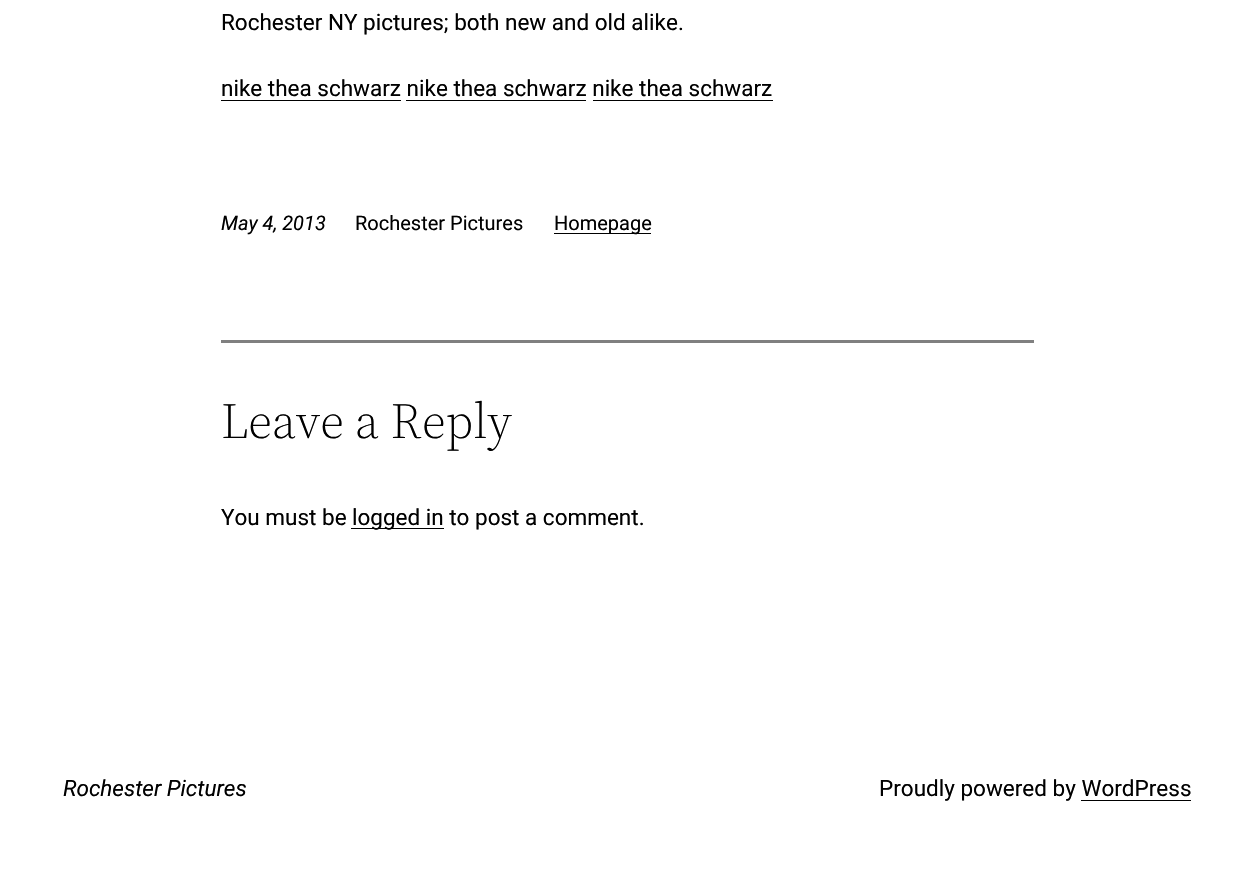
#include "include/core/SkBlurTypes.h"
#include "include/core/SkCanvas.h"
#include "include/core/SkData.h"
#include "include/core/SkFont.h"
#include "include/core/SkFontMgr.h"
#include "include/core/SkImage.h"
#include "include/core/SkMaskFilter.h"
#include "include/core/SkPaint.h"
#include "include/core/SkPathBuilder.h"
#include "include/core/SkTextBlob.h"
#include "include/effects/SkDashPathEffect.h"
#include "include/effects/SkGradientShader.h"
#include "include/utils/SkParsePath.h"

extern sk_sp<SkFontMgr> fontMgr;

static SkFont font(const char* family, int weight, float size, bool italic = false) {
    SkFontStyle style(weight, SkFontStyle::kNormal_Width,
        italic ? SkFontStyle::kItalic_Slant : SkFontStyle::kUpright_Slant);
    SkFont result(fontMgr->matchFamilyStyle(family, style), size);
    result.setSubpixel(true);
    return result;
}

static void drawLabel(SkCanvas* canvas, const char* s, float x, float y, const SkFont& font, SkColor color) {
    SkPaint ink(SkColor4f::FromColor(color));
    ink.setAntiAlias(true);
    canvas->drawString(s, x, y, font, ink);
}

static void fillRect(SkCanvas* canvas, float x, float y, float w, float h, SkColor color) {
    SkPaint ink(SkColor4f::FromColor(color));
    ink.setAntiAlias(true);
    canvas->drawRect(SkRect::MakeXYWH(x, y, w, h), ink);
}

void draw(SkCanvas* canvas) {
    SkPaint paint;
    paint.setAntiAlias(true);
    canvas->clear(0xFFFFFFFF);
    SkFont font1 = font("Roboto", 400, 22.5f);
    drawLabel(canvas, "Rochester NY pictures; both new and old alike.", 221, 30, font1, 0xFF000000);
    drawLabel(canvas, "nike thea schwarz nike thea schwarz nike thea schwarz", 221, 96, font1, 0xFF000000);
    fillRect(canvas, 221, 100, 180, 1, 0xFF000000);
    fillRect(canvas, 406, 100, 180, 1, 0xFF000000);
    fillRect(canvas, 593, 100, 180, 1, 0xFF000000);
    SkFont font2 = font("Roboto", 400, 20, true);
    drawLabel(canvas, "May 4, 2013", 221, 230, font2, 0xFF000000);
    SkFont font3 = font("Roboto", 400, 20);
    drawLabel(canvas, "Rochester Pictures", 355, 230, font3, 0xFF000000);
    fillRect(canvas, 554, 233, 97, 1, 0xFF000000);
    drawLabel(canvas, "Homepage", 554, 230, font3, 0xFF000000);
    fillRect(canvas, 221, 340, 813, 3, 0xFF808080);
    SkFont font4 = font("Source Serif 4", 300, 50);
    drawLabel(canvas, "Leave a Reply", 221, 438, font4, 0xFF000000);
    drawLabel(canvas, "You must be", 221, 525, font1, 0xFF000000);
    fillRect(canvas, 351, 528, 93, 1, 0xFF000000);
    drawLabel(canvas, "logged in to post a comment.", 352, 525, font1, 0xFF000000);
    SkFont font5 = font("Roboto", 400, 22.5f, true);
    drawLabel(canvas, "Rochester Pictures", 63, 796, font5, 0xFF000000);
    drawLabel(canvas, "Proudly powered by WordPress", 879, 796, font1, 0xFF000000);
    fillRect(canvas, 1081, 800, 110, 1, 0xFF000000);
}
